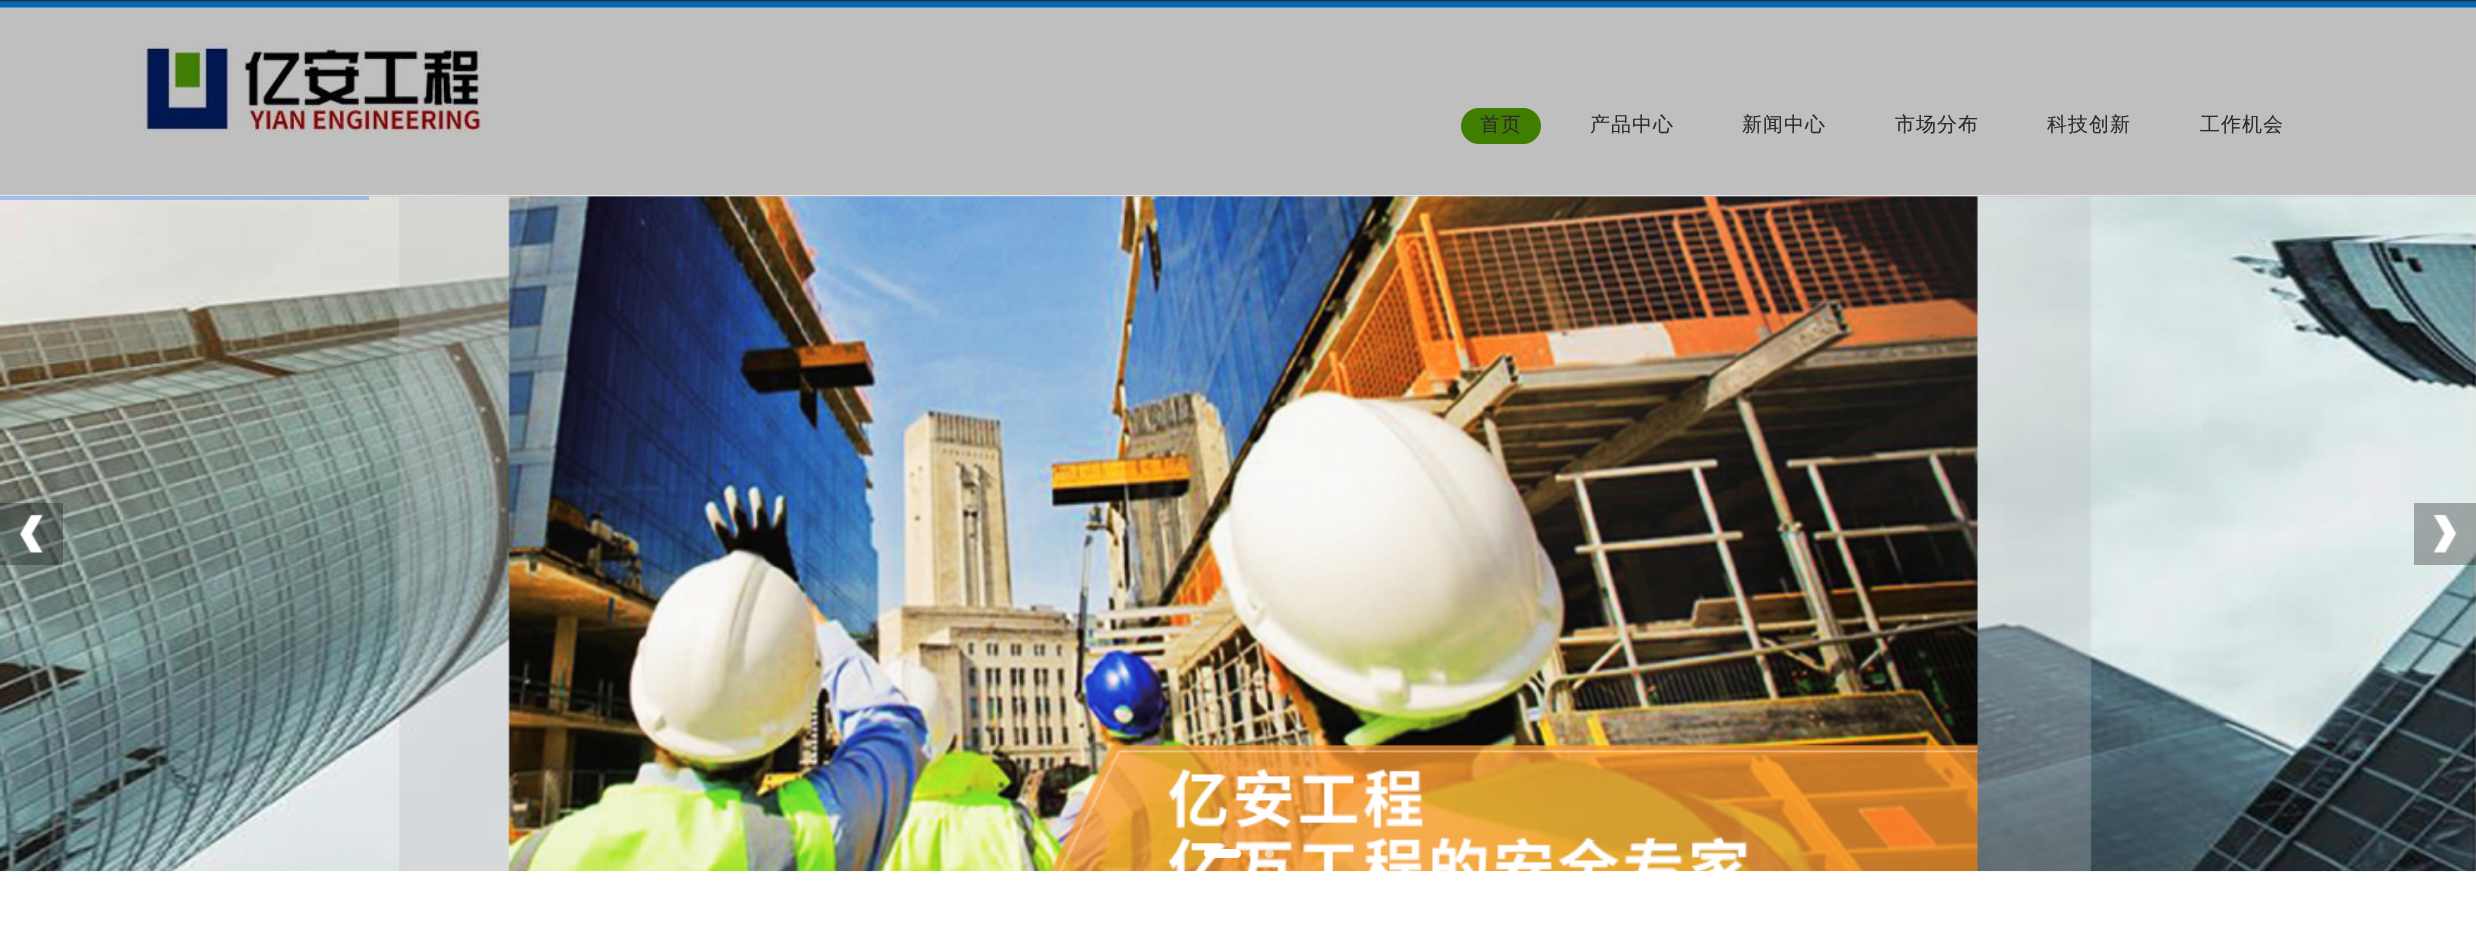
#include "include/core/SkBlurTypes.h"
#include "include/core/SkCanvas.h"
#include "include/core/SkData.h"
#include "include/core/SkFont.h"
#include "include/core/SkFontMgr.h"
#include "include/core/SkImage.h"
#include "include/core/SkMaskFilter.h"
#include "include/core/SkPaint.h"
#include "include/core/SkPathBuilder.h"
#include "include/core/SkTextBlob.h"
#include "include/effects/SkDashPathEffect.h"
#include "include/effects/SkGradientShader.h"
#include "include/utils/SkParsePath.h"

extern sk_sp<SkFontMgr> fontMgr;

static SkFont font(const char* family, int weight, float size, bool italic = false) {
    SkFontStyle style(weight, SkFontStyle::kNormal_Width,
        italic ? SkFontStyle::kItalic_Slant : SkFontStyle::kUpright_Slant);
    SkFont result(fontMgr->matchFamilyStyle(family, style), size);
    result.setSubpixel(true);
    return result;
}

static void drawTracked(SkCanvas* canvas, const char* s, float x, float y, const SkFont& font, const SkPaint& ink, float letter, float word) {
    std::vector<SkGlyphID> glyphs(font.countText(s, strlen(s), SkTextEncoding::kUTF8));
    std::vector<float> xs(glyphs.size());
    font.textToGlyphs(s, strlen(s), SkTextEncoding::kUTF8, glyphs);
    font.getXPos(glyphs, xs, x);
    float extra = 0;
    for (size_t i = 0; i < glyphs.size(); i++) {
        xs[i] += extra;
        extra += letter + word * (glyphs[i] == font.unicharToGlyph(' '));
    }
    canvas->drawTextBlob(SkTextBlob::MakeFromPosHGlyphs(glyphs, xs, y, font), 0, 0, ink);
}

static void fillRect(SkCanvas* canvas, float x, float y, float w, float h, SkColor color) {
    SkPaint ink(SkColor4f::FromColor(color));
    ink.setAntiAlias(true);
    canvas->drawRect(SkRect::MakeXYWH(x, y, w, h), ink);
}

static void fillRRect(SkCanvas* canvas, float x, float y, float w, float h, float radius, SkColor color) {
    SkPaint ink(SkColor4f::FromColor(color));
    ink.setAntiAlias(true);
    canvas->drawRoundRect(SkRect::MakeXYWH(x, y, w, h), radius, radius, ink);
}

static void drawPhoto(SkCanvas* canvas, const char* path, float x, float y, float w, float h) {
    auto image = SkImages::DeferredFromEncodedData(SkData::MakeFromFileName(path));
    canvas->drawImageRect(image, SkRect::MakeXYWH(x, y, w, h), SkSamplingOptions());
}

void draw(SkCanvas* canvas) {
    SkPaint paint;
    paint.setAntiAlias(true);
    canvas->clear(0xFFFFFFFF);
    drawPhoto(canvas, "assets/img1.png", 0, 0, 2476, 196);
    drawPhoto(canvas, "assets/img2.png", 142, 42, 341, 92);
    fillRRect(canvas, 1461, 108, 80, 36, 18, 0xFF407E01);
    SkFont font1 = font("WenQuanYi Zen Hei", 500, 20);
    paint.setColor(0xFF2F2B2B);
    drawTracked(canvas, "首页", 1480, 131, font1, paint, 1, 0);
    drawTracked(canvas, "产品中心", 1590, 131, font1, paint, 1, 0);
    drawTracked(canvas, "新闻中心", 1742, 131, font1, paint, 1, 0);
    drawTracked(canvas, "市场分布", 1895, 131, font1, paint, 1, 0);
    drawTracked(canvas, "科技创新", 2047, 131, font1, paint, 1, 0);
    drawTracked(canvas, "工作机会", 2200, 131, font1, paint, 1, 0);
    fillRect(canvas, 0, 196, 2476, 1, 0xFFAAC7F3);
    drawPhoto(canvas, "assets/img3.png", 0, 196, 2476, 676);
    fillRect(canvas, 0, 196, 369, 4, 0x805B98F7);
    fillRect(canvas, 0, 503, 63, 62, 0x4D000000);
    drawPhoto(canvas, "assets/img4.png", 19, 514, 24, 39);
    fillRect(canvas, 2414, 503, 62, 62, 0x4D000000);
    drawPhoto(canvas, "assets/img5.png", 2433, 514, 24, 39);
    fillRRect(canvas, 1204, 849, 37, 9, 4.5f, 0xFFFFFFFF);
    paint.setColor(0x99FFFFFF);
    canvas->drawCircle(1253.5f, 853.5f, 4.5f, paint);
    canvas->drawCircle(1269.5f, 853.5f, 4.5f, paint);
}
